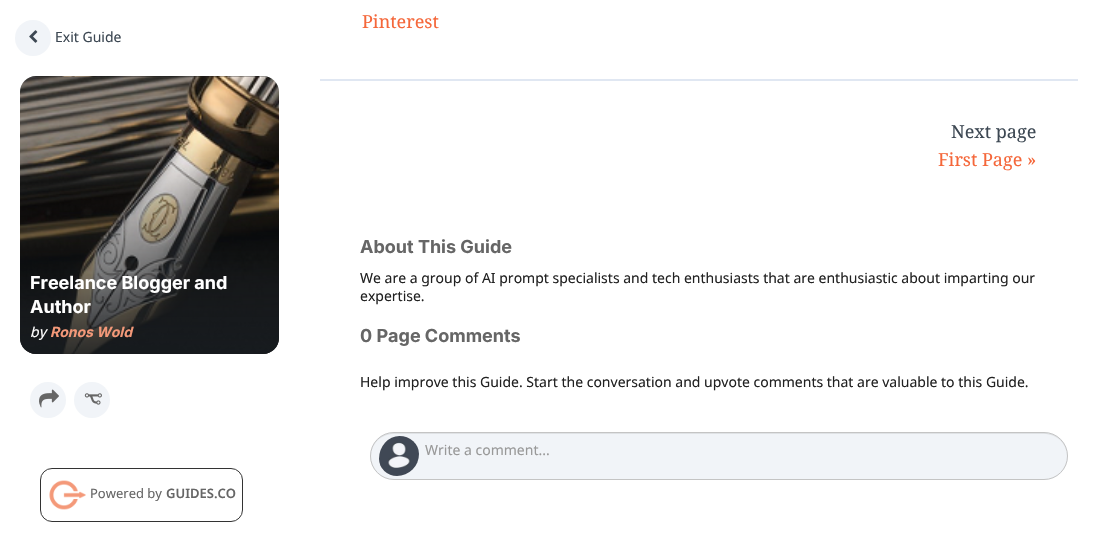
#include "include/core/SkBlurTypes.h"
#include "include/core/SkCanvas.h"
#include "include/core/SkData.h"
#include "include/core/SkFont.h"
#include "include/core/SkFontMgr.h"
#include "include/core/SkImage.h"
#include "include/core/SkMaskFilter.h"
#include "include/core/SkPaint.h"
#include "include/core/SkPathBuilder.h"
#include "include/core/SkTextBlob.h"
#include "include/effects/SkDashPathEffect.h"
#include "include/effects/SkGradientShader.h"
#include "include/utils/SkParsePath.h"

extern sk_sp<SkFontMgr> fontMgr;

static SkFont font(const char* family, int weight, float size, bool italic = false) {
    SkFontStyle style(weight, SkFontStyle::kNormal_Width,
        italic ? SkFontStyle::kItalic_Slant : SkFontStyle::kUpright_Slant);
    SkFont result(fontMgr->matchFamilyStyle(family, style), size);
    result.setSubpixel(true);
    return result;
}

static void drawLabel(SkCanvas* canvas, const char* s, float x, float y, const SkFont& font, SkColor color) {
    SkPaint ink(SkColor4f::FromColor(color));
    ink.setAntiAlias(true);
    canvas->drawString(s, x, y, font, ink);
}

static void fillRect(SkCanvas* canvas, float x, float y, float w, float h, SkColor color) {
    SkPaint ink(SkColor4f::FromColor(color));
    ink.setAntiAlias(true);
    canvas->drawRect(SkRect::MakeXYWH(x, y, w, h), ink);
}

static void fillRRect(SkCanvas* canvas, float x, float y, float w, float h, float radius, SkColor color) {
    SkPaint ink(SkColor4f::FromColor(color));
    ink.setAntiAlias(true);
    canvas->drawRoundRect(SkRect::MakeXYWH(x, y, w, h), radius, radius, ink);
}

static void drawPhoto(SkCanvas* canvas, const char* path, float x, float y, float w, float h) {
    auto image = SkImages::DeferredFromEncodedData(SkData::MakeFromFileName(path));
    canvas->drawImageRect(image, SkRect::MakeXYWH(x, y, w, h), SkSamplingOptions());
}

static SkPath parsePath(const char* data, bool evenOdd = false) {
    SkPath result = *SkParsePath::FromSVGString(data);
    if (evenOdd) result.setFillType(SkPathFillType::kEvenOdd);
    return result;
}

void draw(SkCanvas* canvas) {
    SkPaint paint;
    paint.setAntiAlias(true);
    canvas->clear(0xFFFFFFFF);
    paint.setColor(0xFFF1F4F8);
    canvas->drawCircle(33, 38, 18, paint);
    drawPhoto(canvas, "assets/img1.png", 29, 30, 9, 13);
    SkFont font1 = font("Noto Sans", 400, 14);
    drawLabel(canvas, "Exit Guide", 55, 42, font1, 0xFF3D4853);
    fillRRect(canvas, 20, 76, 259, 278, 16, 0xFFDDDDDD);
    drawPhoto(canvas, "assets/img2.png", 20, 76, 259, 278);
    {
        const SkColor colors[] = {0xE6161A1E, 0x00161A1E};
        const float stops[] = {0, 0.79f};
        const SkPoint ends[] = {{150, 354}, {149, 76}};
        paint.setShader(SkGradientShader::MakeLinear(ends, colors, stops, 2, SkTileMode::kClamp));
        paint.setAlpha(255);
    }
    canvas->drawRoundRect(SkRect::MakeXYWH(20, 76, 259, 278), 16, 16, paint);
    SkFont font2 = font("Inter", 700, 18);
    drawLabel(canvas, "Freelance Blogger and", 30, 289, font2, 0xFFFFFFFF);
    drawLabel(canvas, "Author", 30, 313, font2, 0xFFFFFFFF);
    SkFont font3 = font("Inter", 400, 14, true);
    drawLabel(canvas, "by", 30, 337, font3, 0xFFFFFFFF);
    SkFont font4 = font("Inter", 700, 14, true);
    drawLabel(canvas, "Ronos Wold", 50, 337, font4, 0xFFF49979);
    paint.setShader(nullptr);
    paint.setColor(0xFFF1F4F8);
    canvas->drawCircle(48, 400, 18, paint);
    drawPhoto(canvas, "assets/img3.png", 39, 389, 20, 19);
    canvas->drawCircle(92, 400, 18, paint);
    drawPhoto(canvas, "assets/img4.png", 84, 393, 18, 12);
    paint.setStroke(true);
    paint.setStrokeWidth(1);
    paint.setColor(0xFF333333);
    canvas->drawRoundRect(SkRect::MakeXYWH(40.5f, 468.5f, 202, 53), 11.5f, 11.5f, paint);
    drawPhoto(canvas, "assets/img5.png", 49, 480, 37, 30);
    SkFont font5 = font("Noto Sans", 400, 13);
    drawLabel(canvas, "Powered by", 90, 498, font5, 0xFF666666);
    SkFont font6 = font("Noto Sans", 600, 13);
    drawLabel(canvas, "GUIDES.CO", 166, 498, font6, 0xFF666666);
    fillRect(canvas, 320, 79, 758, 2, 0xFFE0E7F2);
    SkFont font7 = font("Noto Serif", 400, 18);
    drawLabel(canvas, "Pinterest", 362, 28, font7, 0xFFF5673A);
    drawLabel(canvas, "Next page", 951, 138, font7, 0xFF3D4853);
    drawLabel(canvas, "First Page »", 938, 166, font7, 0xFFF5673A);
    drawLabel(canvas, "About This Guide", 360, 253, font2, 0xFF666666);
    drawLabel(canvas, "We are a group of AI prompt specialists and tech enthusiasts that are enthusiastic about imparting our", 360, 283, font1, 0xFF222222);
    drawLabel(canvas, "expertise.", 360, 301, font1, 0xFF222222);
    drawLabel(canvas, "0 Page Comments", 360, 342, font2, 0xFF666666);
    drawLabel(canvas, "Help improve this Guide. Start the conversation and upvote comments that are valuable to this Guide.", 360, 387, font1, 0xFF222222);
    fillRRect(canvas, 370, 432, 698, 48, 24, 0xFFF1F4F8);
    paint.setStroke(false);
    paint.setColor(0xFFDFE2E5);
    canvas->drawPath(parsePath("M394 434H1044C1057 434 1067 444 1067 456C1067 443 1057 433 1044 433H394C381 433 371 443 371 456C371 444 381 434 394 434Z"), paint);
    paint.setStroke(true);
    paint.setColor(0xFFC4C4C4);
    canvas->drawRoundRect(SkRect::MakeXYWH(370.5f, 432.5f, 697, 47), 23.5f, 23.5f, paint);
    paint.setStroke(false);
    paint.setColor(0xFFFFFFFF);
    canvas->drawPath(parsePath("M399 436C427 436 424 476 397 476C393 476 390 475 387 473C371 463 381 436 399 436Z"), paint);
    drawPhoto(canvas, "assets/img6.png", 379, 436, 40, 40);
    drawLabel(canvas, "Write a comment...", 425, 455, font1, 0xFF999999);
}
